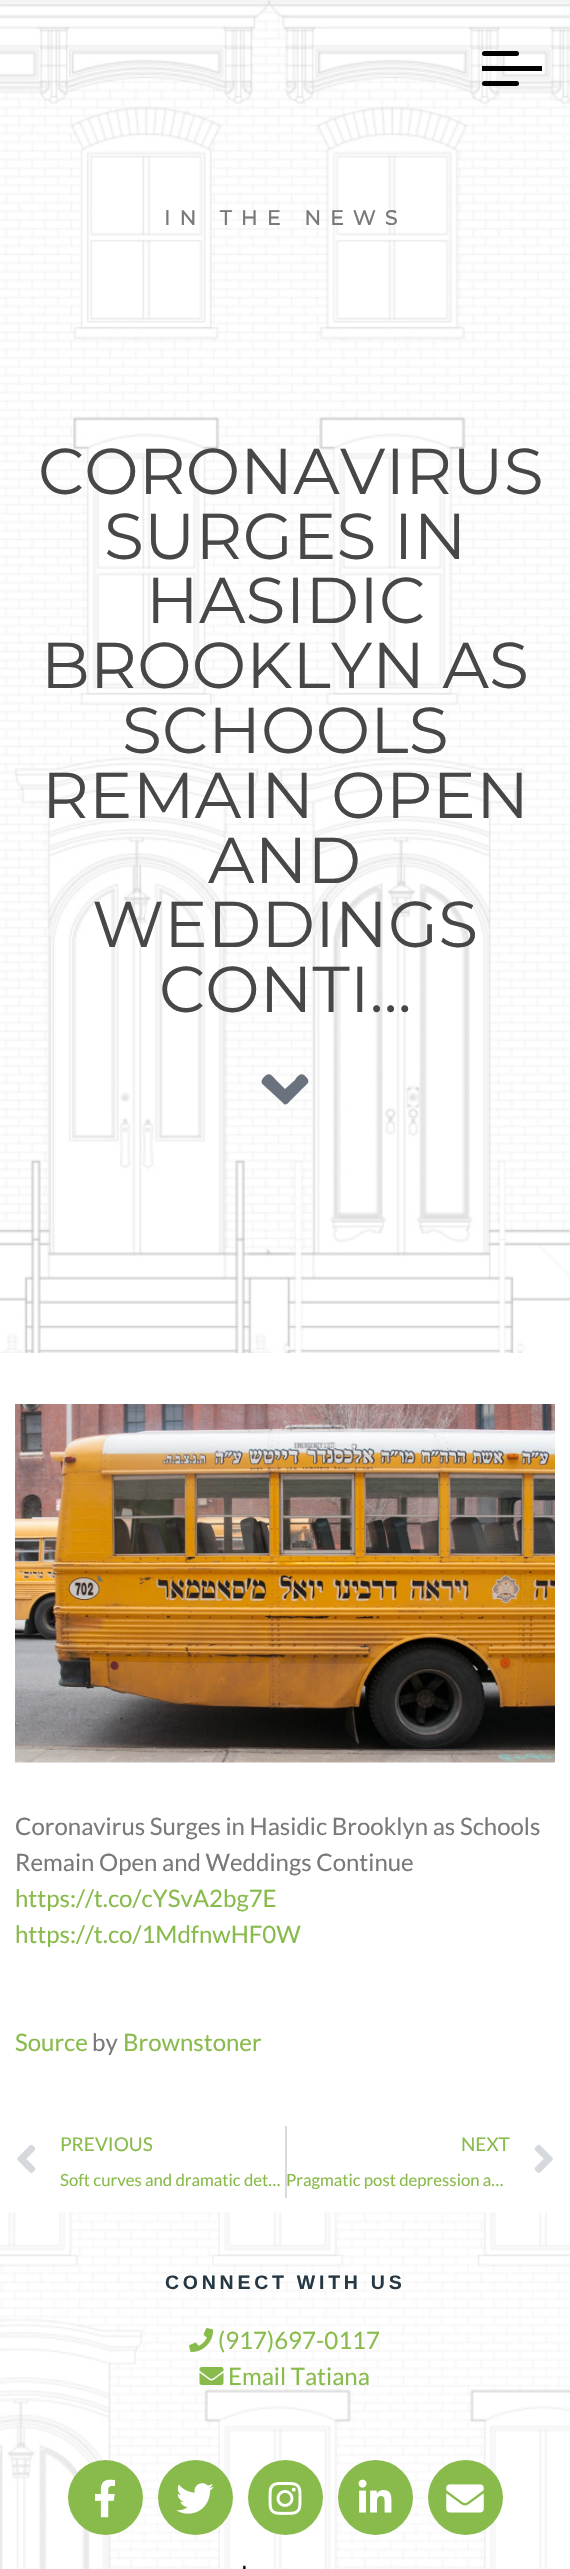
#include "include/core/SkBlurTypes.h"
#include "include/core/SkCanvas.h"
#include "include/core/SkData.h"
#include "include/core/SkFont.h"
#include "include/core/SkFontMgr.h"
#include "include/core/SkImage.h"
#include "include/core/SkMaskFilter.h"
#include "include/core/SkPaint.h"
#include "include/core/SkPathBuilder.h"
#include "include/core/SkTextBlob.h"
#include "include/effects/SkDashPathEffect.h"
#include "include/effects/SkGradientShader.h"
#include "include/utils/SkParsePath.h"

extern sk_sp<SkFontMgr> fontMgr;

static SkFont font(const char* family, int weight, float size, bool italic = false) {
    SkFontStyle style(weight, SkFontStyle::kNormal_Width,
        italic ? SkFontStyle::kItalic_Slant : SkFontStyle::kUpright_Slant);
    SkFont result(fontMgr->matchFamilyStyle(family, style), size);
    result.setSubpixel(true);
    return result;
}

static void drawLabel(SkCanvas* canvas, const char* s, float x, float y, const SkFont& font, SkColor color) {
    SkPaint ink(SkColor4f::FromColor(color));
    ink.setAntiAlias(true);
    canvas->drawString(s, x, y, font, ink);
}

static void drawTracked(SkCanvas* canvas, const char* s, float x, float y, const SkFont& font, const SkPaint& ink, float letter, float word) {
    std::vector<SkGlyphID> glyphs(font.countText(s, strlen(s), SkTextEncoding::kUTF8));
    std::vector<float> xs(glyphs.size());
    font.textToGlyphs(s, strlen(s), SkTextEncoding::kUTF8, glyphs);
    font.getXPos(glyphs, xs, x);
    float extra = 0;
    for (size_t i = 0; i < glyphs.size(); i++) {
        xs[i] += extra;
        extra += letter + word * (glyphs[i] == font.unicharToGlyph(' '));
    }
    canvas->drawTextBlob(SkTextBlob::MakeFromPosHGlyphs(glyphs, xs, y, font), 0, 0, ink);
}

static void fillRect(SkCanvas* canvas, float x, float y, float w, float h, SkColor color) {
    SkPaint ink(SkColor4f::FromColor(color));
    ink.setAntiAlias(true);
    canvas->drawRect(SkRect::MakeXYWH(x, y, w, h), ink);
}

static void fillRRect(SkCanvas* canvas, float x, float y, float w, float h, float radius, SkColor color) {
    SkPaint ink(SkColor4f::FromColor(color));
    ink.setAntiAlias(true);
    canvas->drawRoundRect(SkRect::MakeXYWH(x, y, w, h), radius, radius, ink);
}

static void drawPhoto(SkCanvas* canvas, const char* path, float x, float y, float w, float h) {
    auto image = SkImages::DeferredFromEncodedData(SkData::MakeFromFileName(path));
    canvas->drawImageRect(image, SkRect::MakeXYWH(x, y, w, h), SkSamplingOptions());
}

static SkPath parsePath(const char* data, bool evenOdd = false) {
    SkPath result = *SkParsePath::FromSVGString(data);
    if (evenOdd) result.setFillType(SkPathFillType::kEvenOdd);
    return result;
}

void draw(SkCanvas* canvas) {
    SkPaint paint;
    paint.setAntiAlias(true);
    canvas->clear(0xFFFFFFFF);
    drawPhoto(canvas, "assets/img1.png", 0, 0, 570, 1353);
    fillRect(canvas, 482, 66, 60, 5, 0xFF000000);
    fillRRect(canvas, 482, 51, 37, 5, 2.5f, 0xFF000000);
    fillRRect(canvas, 482, 81, 37, 5, 2.5f, 0xFF000000);
    SkFont font1 = font("Montserrat", 700, 20.4f);
    paint.setColor(0xFF7A7979);
    drawTracked(canvas, "IN THE NEWS", 164, 225, font1, paint, 9.25f, 0);
    SkFont font2 = font("Montserrat", 100, 64.75f);
    paint.setColor(0xFF474747);
    drawTracked(canvas, "CORONAVIRUS", 38, 494, font2, paint, 0.25f, 0);
    drawTracked(canvas, "SURGES IN", 104, 559, font2, paint, 0.25f, 0);
    drawTracked(canvas, "HASIDIC", 146, 623, font2, paint, 0.25f, 0);
    drawTracked(canvas, "BROOKLYN AS", 41, 688, font2, paint, 0.25f, 0);
    drawTracked(canvas, "SCHOOLS", 122, 753, font2, paint, 0.25f, 0);
    drawTracked(canvas, "REMAIN OPEN", 42, 818, font2, paint, 0.25f, 0);
    drawTracked(canvas, "AND", 208, 883, font2, paint, 0.25f, 0);
    drawTracked(canvas, "WEDDINGS", 92, 947, font2, paint, 0.25f, 0);
    drawTracked(canvas, "CONTI…", 159, 1012, font2, paint, 0.25f, 0);
    paint.setColor(0xFF69727D);
    canvas->drawPath(parsePath("M283 1103L269 1090C263 1084 258 1083 265 1076C270 1072 272 1076 276 1080L285 1089L295 1080C296 1078 300 1072 304 1075C312 1082 308 1083 301 1090L291 1100C289 1102 286 1107 283 1103Z"), paint);
    drawPhoto(canvas, "assets/img2.png", 15, 1404, 540, 359);
    SkFont font3 = font("Lato", 400, 24);
    drawLabel(canvas, "Coronavirus Surges in Hasidic Brooklyn as Schools", 15, 1835, font3, 0xFF7A7979);
    drawLabel(canvas, "Remain Open and Weddings Continue", 15, 1871, font3, 0xFF7A7979);
    drawLabel(canvas, "https://t.co/cYSvA2bg7E", 15, 1907, font3, 0xFF89BB4C);
    drawLabel(canvas, "https://t.co/1MdfnwHF0W", 15, 1943, font3, 0xFF89BB4C);
    drawLabel(canvas, "Source", 15, 2051, font3, 0xFF89BB4C);
    drawLabel(canvas, "by", 92, 2051, font3, 0xFF7A7979);
    drawLabel(canvas, "Brownstoner", 123, 2051, font3, 0xFF89BB4C);
    drawPhoto(canvas, "assets/img3.png", 17, 2144, 19, 29);
    SkFont font4 = font("Lato", 400, 19);
    drawLabel(canvas, "PREVIOUS", 60, 2151, font4, 0xFF89BB4C);
    SkFont font5 = font("Lato", 400, 16.75f);
    drawLabel(canvas, "Soft curves and dramatic det…", 60, 2186, font5, 0xFF89BB4C);
    fillRect(canvas, 285, 2126, 2, 72, 0xFFD5D8DC);
    drawLabel(canvas, "NEXT", 461, 2151, font4, 0xFF89BB4C);
    drawLabel(canvas, "Pragmatic post depression a…", 286, 2186, font5, 0xFF89BB4C);
    drawPhoto(canvas, "assets/img4.png", 534, 2144, 19, 29);
    drawPhoto(canvas, "assets/img5.png", 0, 2212, 570, 357);
    SkFont font6 = font("Liberation Sans", 700, 19.5f);
    paint.setColor(0xFF263844);
    drawTracked(canvas, "CONNECT WITH US", 165, 2289, font6, paint, 3.75f, 0);
    drawPhoto(canvas, "assets/img6.png", 189, 2328, 25, 24);
    drawLabel(canvas, "(917)697-0117", 218, 2349, font3, 0xFF89BB4C);
    drawPhoto(canvas, "assets/img7.png", 199, 2367, 25, 18);
    drawLabel(canvas, "Email Tatiana", 228, 2385, font3, 0xFF89BB4C);
    paint.setColor(0xFF89BB4C);
    canvas->drawCircle(105.5f, 2497.5f, 37.5f, paint);
    drawPhoto(canvas, "assets/img8.png", 94, 2479, 22, 39);
    canvas->drawCircle(195.5f, 2497.5f, 37.5f, paint);
    drawPhoto(canvas, "assets/img9.png", 176, 2483, 38, 31);
    canvas->drawCircle(285.5f, 2497.5f, 37.5f, paint);
    drawPhoto(canvas, "assets/img10.png", 268, 2481, 34, 34);
    canvas->drawCircle(375.5f, 2497.5f, 37.5f, paint);
    drawPhoto(canvas, "assets/img11.png", 358, 2479, 34, 34);
    canvas->drawCircle(465.5f, 2497.5f, 37.5f, paint);
    drawPhoto(canvas, "assets/img12.png", 446, 2484, 38, 29);
    drawPhoto(canvas, "assets/img13.png", 243, 2565, 3, 4);
}
